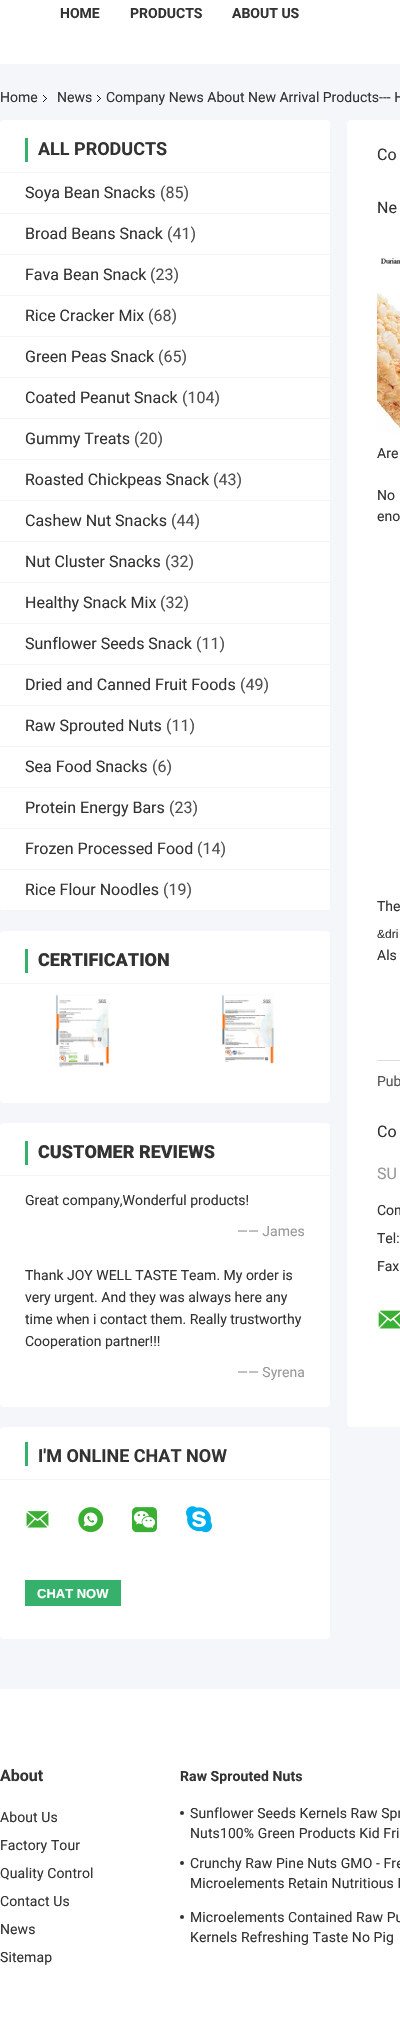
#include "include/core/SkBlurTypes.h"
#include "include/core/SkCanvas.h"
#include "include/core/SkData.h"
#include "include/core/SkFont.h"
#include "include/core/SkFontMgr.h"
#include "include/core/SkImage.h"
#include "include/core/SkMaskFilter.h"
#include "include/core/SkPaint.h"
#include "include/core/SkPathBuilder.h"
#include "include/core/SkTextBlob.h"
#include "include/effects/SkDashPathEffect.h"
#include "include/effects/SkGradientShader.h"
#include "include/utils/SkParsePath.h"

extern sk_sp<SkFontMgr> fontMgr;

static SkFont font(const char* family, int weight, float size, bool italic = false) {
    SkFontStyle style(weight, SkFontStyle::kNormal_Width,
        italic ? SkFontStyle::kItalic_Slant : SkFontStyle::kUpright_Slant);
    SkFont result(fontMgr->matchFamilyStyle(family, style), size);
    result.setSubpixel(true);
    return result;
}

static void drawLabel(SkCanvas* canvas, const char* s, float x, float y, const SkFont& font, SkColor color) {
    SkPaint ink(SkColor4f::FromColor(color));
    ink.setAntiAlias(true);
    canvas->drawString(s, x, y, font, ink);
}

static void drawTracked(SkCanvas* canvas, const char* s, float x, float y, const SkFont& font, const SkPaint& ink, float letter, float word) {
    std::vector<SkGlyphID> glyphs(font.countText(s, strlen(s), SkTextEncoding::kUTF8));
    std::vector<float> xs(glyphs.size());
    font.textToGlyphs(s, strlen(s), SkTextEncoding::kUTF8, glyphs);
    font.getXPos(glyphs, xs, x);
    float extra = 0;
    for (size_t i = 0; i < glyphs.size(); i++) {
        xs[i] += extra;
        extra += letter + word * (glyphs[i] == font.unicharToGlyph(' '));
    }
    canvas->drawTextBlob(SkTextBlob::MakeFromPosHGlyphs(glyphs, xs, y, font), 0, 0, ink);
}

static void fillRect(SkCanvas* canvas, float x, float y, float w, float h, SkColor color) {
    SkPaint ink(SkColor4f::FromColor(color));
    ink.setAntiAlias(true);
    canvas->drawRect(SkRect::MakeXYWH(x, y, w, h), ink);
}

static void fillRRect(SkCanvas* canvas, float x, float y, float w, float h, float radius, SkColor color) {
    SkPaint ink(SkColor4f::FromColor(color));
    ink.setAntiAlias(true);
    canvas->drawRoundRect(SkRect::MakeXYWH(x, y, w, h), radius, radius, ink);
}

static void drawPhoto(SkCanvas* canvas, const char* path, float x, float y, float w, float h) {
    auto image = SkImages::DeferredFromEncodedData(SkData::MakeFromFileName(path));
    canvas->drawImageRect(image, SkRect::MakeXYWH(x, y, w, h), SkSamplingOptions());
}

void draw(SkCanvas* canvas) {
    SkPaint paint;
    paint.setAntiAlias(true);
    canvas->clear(0xFFF4F6F9);
    fillRect(canvas, 0, 0, 400, 64, 0xFFFFFFFF);
    SkFont font1 = font("Roboto", 700, 14);
    drawLabel(canvas, "HOME", 60, 18, font1, 0xFF333333);
    drawLabel(canvas, "PRODUCTS", 130, 18, font1, 0xFF333333);
    drawLabel(canvas, "ABOUT US", 232, 18, font1, 0xFF333333);
    SkFont font2 = font("Roboto", 400, 14);
    drawLabel(canvas, "Home", 0, 102, font2, 0xFF333333);
    drawPhoto(canvas, "assets/img1.png", 43, 95, 4, 7);
    drawLabel(canvas, "News", 57, 102, font2, 0xFF333333);
    drawPhoto(canvas, "assets/img1.png", 97, 95, 4, 7);
    drawLabel(canvas, "Company News About New Arrival Products--- H", 106, 102, font2, 0xFF333333);
    fillRRect(canvas, 0, 120, 330, 791, 4, 0xFFFFFFFF);
    fillRect(canvas, 0, 172, 330, 1, 0xFFF5F5F5);
    fillRect(canvas, 25, 138, 3, 24, 0xFF35B16C);
    SkFont font3 = font("Roboto", 700, 18);
    drawLabel(canvas, "ALL PRODUCTS", 38, 155, font3, 0xFF333333);
    fillRect(canvas, 0, 213, 330, 1, 0xFFF5F5F5);
    SkFont font4 = font("Roboto", 400, 16);
    drawLabel(canvas, "Soya Bean Snacks", 25, 198, font4, 0xFF333333);
    drawLabel(canvas, "(85)", 160, 198, font4, 0xFF4E4E4E);
    fillRect(canvas, 0, 254, 330, 1, 0xFFF5F5F5);
    drawLabel(canvas, "Broad Beans Snack", 25, 239, font4, 0xFF333333);
    drawLabel(canvas, "(41)", 167, 239, font4, 0xFF4E4E4E);
    fillRect(canvas, 0, 295, 330, 1, 0xFFF5F5F5);
    drawLabel(canvas, "Fava Bean Snack", 25, 280, font4, 0xFF333333);
    drawLabel(canvas, "(23)", 150, 280, font4, 0xFF4E4E4E);
    fillRect(canvas, 0, 336, 330, 1, 0xFFF5F5F5);
    drawLabel(canvas, "Rice Cracker Mix", 25, 321, font4, 0xFF333333);
    drawLabel(canvas, "(68)", 148, 321, font4, 0xFF4E4E4E);
    fillRect(canvas, 0, 377, 330, 1, 0xFFF5F5F5);
    drawLabel(canvas, "Green Peas Snack", 25, 362, font4, 0xFF333333);
    drawLabel(canvas, "(65)", 158, 362, font4, 0xFF4E4E4E);
    fillRect(canvas, 0, 418, 330, 1, 0xFFF5F5F5);
    drawLabel(canvas, "Coated Peanut Snack", 25, 403, font4, 0xFF333333);
    drawLabel(canvas, "(104)", 182, 403, font4, 0xFF4E4E4E);
    fillRect(canvas, 0, 459, 330, 1, 0xFFF5F5F5);
    drawLabel(canvas, "Gummy Treats", 25, 444, font4, 0xFF333333);
    drawLabel(canvas, "(20)", 134, 444, font4, 0xFF4E4E4E);
    fillRect(canvas, 0, 500, 330, 1, 0xFFF5F5F5);
    drawLabel(canvas, "Roasted Chickpeas Snack", 25, 485, font4, 0xFF333333);
    drawLabel(canvas, "(43)", 213, 485, font4, 0xFF4E4E4E);
    fillRect(canvas, 0, 541, 330, 1, 0xFFF5F5F5);
    drawLabel(canvas, "Cashew Nut Snacks", 25, 526, font4, 0xFF333333);
    drawLabel(canvas, "(44)", 171, 526, font4, 0xFF4E4E4E);
    fillRect(canvas, 0, 582, 330, 1, 0xFFF5F5F5);
    drawLabel(canvas, "Nut Cluster Snacks", 25, 567, font4, 0xFF333333);
    drawLabel(canvas, "(32)", 165, 567, font4, 0xFF4E4E4E);
    fillRect(canvas, 0, 623, 330, 1, 0xFFF5F5F5);
    drawLabel(canvas, "Healthy Snack Mix", 25, 608, font4, 0xFF333333);
    drawLabel(canvas, "(32)", 160, 608, font4, 0xFF4E4E4E);
    fillRect(canvas, 0, 664, 330, 1, 0xFFF5F5F5);
    drawLabel(canvas, "Sunflower Seeds Snack", 25, 649, font4, 0xFF333333);
    drawLabel(canvas, "(11)", 196, 649, font4, 0xFF4E4E4E);
    fillRect(canvas, 0, 705, 330, 1, 0xFFF5F5F5);
    drawLabel(canvas, "Dried and Canned Fruit Foods", 25, 690, font4, 0xFF333333);
    drawLabel(canvas, "(49)", 240, 690, font4, 0xFF4E4E4E);
    fillRect(canvas, 0, 746, 330, 1, 0xFFF5F5F5);
    drawLabel(canvas, "Raw Sprouted Nuts", 25, 731, font4, 0xFF333333);
    drawLabel(canvas, "(11)", 166, 731, font4, 0xFF4E4E4E);
    fillRect(canvas, 0, 787, 330, 1, 0xFFF5F5F5);
    drawLabel(canvas, "Sea Food Snacks", 25, 772, font4, 0xFF333333);
    drawLabel(canvas, "(6)", 152, 772, font4, 0xFF4E4E4E);
    fillRect(canvas, 0, 828, 330, 1, 0xFFF5F5F5);
    drawLabel(canvas, "Protein Energy Bars", 25, 813, font4, 0xFF333333);
    drawLabel(canvas, "(23)", 169, 813, font4, 0xFF4E4E4E);
    fillRect(canvas, 0, 869, 330, 1, 0xFFF5F5F5);
    drawLabel(canvas, "Frozen Processed Food", 25, 854, font4, 0xFF333333);
    drawLabel(canvas, "(14)", 197, 854, font4, 0xFF4E4E4E);
    fillRect(canvas, 0, 910, 330, 1, 0xFFF5F5F5);
    drawLabel(canvas, "Rice Flour Noodles", 25, 895, font4, 0xFF333333);
    drawLabel(canvas, "(19)", 163, 895, font4, 0xFF4E4E4E);
    fillRRect(canvas, 0, 931, 330, 172, 4, 0xFFFFFFFF);
    fillRect(canvas, 0, 983, 330, 1, 0xFFF5F5F5);
    fillRect(canvas, 25, 949, 3, 24, 0xFF35B16C);
    SkFont font5 = font("Roboto", 900, 18);
    drawLabel(canvas, "CERTIFICATION", 38, 966, font5, 0xFF333333);
    drawPhoto(canvas, "assets/img2.png", 55, 994, 55, 73);
    drawPhoto(canvas, "assets/img3.png", 221, 994, 53, 70);
    fillRRect(canvas, 0, 1123, 330, 284, 4, 0xFFFFFFFF);
    fillRect(canvas, 0, 1175, 330, 1, 0xFFF5F5F5);
    fillRect(canvas, 25, 1141, 3, 24, 0xFF35B16C);
    drawLabel(canvas, "CUSTOMER REVIEWS", 38, 1158, font5, 0xFF333333);
    drawLabel(canvas, "Great company,Wonderful products!", 25, 1205, font2, 0xFF333333);
    drawLabel(canvas, "—— James", 237, 1236, font2, 0xFF999999);
    drawLabel(canvas, "Thank JOY WELL TASTE Team. My order is", 25, 1280, font2, 0xFF333333);
    drawLabel(canvas, "very urgent. And they was always here any", 25, 1302, font2, 0xFF333333);
    drawLabel(canvas, "time when i contact them. Really trustworthy", 25, 1324, font2, 0xFF333333);
    drawLabel(canvas, "Cooperation partner!!!", 25, 1346, font2, 0xFF333333);
    drawLabel(canvas, "—— Syrena", 237, 1377, font2, 0xFF999999);
    fillRRect(canvas, 0, 1427, 330, 212, 4, 0xFFFFFFFF);
    fillRect(canvas, 0, 1479, 330, 1, 0xFFF5F5F5);
    fillRect(canvas, 25, 1442, 3, 24, 0xFF35B16C);
    drawLabel(canvas, "I'M ONLINE CHAT NOW", 38, 1462, font3, 0xFF333333);
    drawPhoto(canvas, "assets/img4.png", 26, 1511, 23, 17);
    drawPhoto(canvas, "assets/img5.png", 78, 1507, 26, 26);
    drawPhoto(canvas, "assets/img6.png", 132, 1507, 25, 26);
    drawPhoto(canvas, "assets/img7.png", 186, 1506, 26, 27);
    fillRect(canvas, 25, 1580, 96, 26, 0xFF35B16C);
    SkFont font6 = font("Liberation Sans", 700, 13);
    drawLabel(canvas, "CHAT NOW", 37, 1598, font6, 0xFFFFFFFF);
    fillRRect(canvas, 347, 120, 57, 1307, 4, 0xFFFFFFFF);
    drawLabel(canvas, "Co", 377, 160, font4, 0xFF333333);
    drawLabel(canvas, "Ne", 377, 213, font4, 0xFF333333);
    drawPhoto(canvas, "assets/img8.png", 377, 257, 23, 176);
    drawLabel(canvas, "Are", 377, 458, font2, 0xFF333333);
    drawLabel(canvas, "No", 377, 500, font2, 0xFF333333);
    drawLabel(canvas, "eno", 377, 521, font2, 0xFF333333);
    drawLabel(canvas, "The", 377, 911, font2, 0xFF333333);
    SkFont font7 = font("Liberation Sans", 400, 12);
    drawLabel(canvas, "&dri", 377, 938, font7, 0xFF333333);
    drawLabel(canvas, "Als", 377, 960, font2, 0xFF333333);
    fillRect(canvas, 377, 1060, 23, 1, 0xFFDCDCDC);
    drawLabel(canvas, "Pub", 377, 1086, font2, 0xFF555555);
    drawLabel(canvas, "Co", 377, 1137, font4, 0xFF333333);
    drawLabel(canvas, "SU", 377, 1179, font4, 0xFF999999);
    drawLabel(canvas, "Con", 377, 1215, font2, 0xFF333333);
    drawLabel(canvas, "Tel:", 377, 1243, font2, 0xFF333333);
    drawLabel(canvas, "Fax", 377, 1271, font2, 0xFF333333);
    drawPhoto(canvas, "assets/img9.png", 378, 1310, 22, 19);
    fillRect(canvas, 0, 1689, 400, 353, 0xFFFFFFFF);
    SkFont font8 = font("Roboto", 700, 16);
    drawLabel(canvas, "About", 0, 1781, font8, 0xFF333333);
    paint.setColor(0xFF333333);
    drawTracked(canvas, "About Us", 0, 1822, font2, paint, 0.1f, 0);
    drawTracked(canvas, "Factory Tour", 0, 1850, font2, paint, 0.1f, 0);
    drawTracked(canvas, "Quality Control", 0, 1878, font2, paint, 0.1f, 0);
    drawTracked(canvas, "Contact Us", 0, 1906, font2, paint, 0.1f, 0);
    drawTracked(canvas, "News", 0, 1934, font2, paint, 0.1f, 0);
    drawTracked(canvas, "Sitemap", 0, 1962, font2, paint, 0.1f, 0);
    drawTracked(canvas, "Raw Sprouted Nuts", 180, 1781, font1, paint, 0.1f, 0);
    canvas->drawCircle(182, 1813, 2, paint);
    drawTracked(canvas, "Sunflower Seeds Kernels Raw Spr", 190, 1818, font2, paint, 0.1f, 0);
    drawTracked(canvas, "Nuts100% Green Products Kid Fri", 190, 1838, font2, paint, 0.1f, 0);
    canvas->drawCircle(182, 1863, 2, paint);
    drawTracked(canvas, "Crunchy Raw Pine Nuts GMO - Fre", 190, 1868, font2, paint, 0.1f, 0);
    drawTracked(canvas, "Microelements Retain Nutritious F", 190, 1888, font2, paint, 0.1f, 0);
    canvas->drawCircle(182, 1917, 2, paint);
    drawTracked(canvas, "Microelements Contained Raw Pu", 190, 1922, font2, paint, 0.1f, 0);
    drawTracked(canvas, "Kernels Refreshing Taste No Pig", 190, 1942, font2, paint, 0.1f, 0);
}
